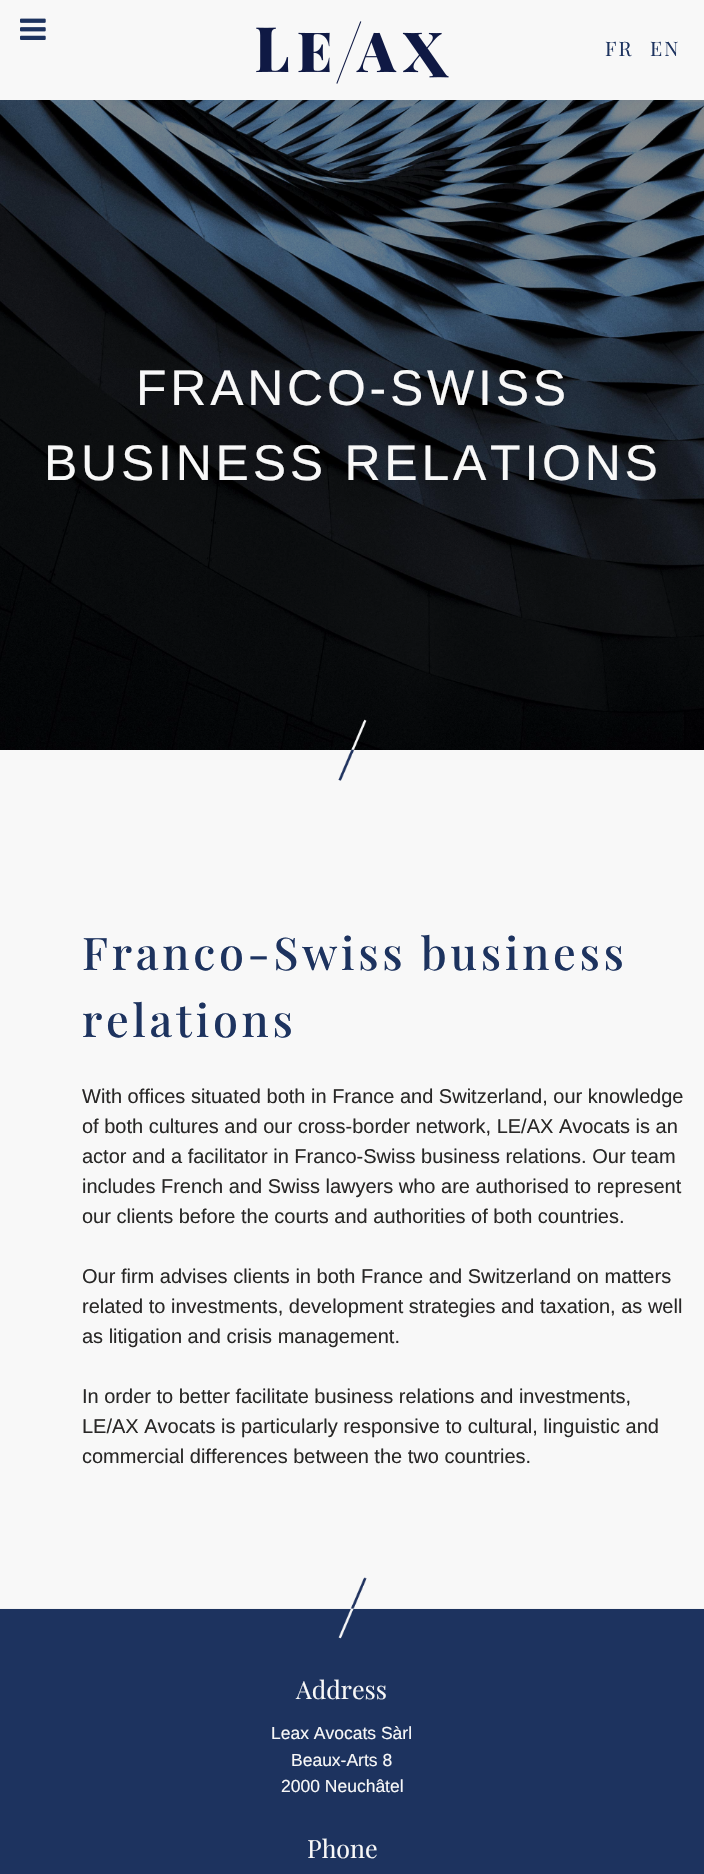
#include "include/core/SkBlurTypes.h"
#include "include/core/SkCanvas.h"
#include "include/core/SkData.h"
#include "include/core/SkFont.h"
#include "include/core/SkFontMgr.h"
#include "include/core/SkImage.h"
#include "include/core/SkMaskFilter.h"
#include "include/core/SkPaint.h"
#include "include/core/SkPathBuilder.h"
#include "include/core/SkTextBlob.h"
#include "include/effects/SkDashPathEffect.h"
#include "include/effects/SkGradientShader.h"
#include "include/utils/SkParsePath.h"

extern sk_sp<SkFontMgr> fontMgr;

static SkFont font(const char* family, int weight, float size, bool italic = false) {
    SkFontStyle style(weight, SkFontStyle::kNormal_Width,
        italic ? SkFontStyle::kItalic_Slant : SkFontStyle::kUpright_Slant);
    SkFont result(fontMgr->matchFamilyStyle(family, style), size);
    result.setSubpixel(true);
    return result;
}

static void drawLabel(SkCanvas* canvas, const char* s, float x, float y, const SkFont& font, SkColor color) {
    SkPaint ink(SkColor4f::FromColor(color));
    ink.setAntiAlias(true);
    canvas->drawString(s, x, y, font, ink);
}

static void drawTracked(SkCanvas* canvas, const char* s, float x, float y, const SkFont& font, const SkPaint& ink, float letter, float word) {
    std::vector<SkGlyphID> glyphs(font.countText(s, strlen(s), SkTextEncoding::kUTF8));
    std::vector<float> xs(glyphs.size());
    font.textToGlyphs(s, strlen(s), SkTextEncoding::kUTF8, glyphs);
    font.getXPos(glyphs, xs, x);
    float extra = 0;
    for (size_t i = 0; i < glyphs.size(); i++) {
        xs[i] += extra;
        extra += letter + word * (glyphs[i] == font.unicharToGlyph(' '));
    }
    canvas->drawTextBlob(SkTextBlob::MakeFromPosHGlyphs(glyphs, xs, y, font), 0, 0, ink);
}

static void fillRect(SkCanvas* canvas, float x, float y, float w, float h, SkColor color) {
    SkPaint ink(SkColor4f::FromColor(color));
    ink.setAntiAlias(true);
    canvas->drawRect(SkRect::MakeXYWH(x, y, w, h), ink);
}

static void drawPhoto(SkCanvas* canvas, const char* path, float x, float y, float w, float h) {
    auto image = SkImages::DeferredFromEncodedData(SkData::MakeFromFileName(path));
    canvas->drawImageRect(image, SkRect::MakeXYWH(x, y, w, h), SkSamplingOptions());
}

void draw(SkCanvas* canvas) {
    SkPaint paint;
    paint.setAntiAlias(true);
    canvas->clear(0xFFF8F8F8);
    drawPhoto(canvas, "assets/img1.png", 20, 18, 26, 22);
    drawPhoto(canvas, "assets/img2.png", 256, 21, 193, 63);
    SkFont font1 = font("Playfair Display", 400, 20);
    paint.setColor(0xFF1D335F);
    drawTracked(canvas, "FR", 605, 56, font1, paint, 2, 0);
    drawTracked(canvas, "EN", 650, 56, font1, paint, 2, 0);
    drawPhoto(canvas, "assets/img3.png", 0, 100, 704, 650);
    SkFont font2 = font("Liberation Sans", 400, 50);
    paint.setColor(0xFFF8F8F8);
    drawTracked(canvas, "FRANCO-SWISS", 136, 405, font2, paint, 3.75f, 0);
    drawTracked(canvas, "BUSINESS RELATIONS", 44, 480, font2, paint, 3.75f, 0);
    drawPhoto(canvas, "assets/img4.png", 338, 719, 29, 62);
    SkFont font3 = font("Playfair Display", 500, 45);
    paint.setColor(0xFF1D335F);
    drawTracked(canvas, "Franco-Swiss business", 82, 970, font3, paint, 3.75f, 0);
    drawTracked(canvas, "relations", 82, 1037, font3, paint, 3.75f, 0);
    SkFont font4 = font("Liberation Sans", 400, 20);
    drawLabel(canvas, "With offices situated both in France and Switzerland, our knowledge", 82, 1103, font4, 0xFF292827);
    drawLabel(canvas, "of both cultures and our cross-border network, LE/AX Avocats is an", 82, 1133, font4, 0xFF292827);
    drawLabel(canvas, "actor and a facilitator in Franco-Swiss business relations. Our team", 82, 1163, font4, 0xFF292827);
    drawLabel(canvas, "includes French and Swiss lawyers who are authorised to represent", 82, 1193, font4, 0xFF292827);
    drawLabel(canvas, "our clients before the courts and authorities of both countries.", 82, 1223, font4, 0xFF292827);
    drawLabel(canvas, "Our firm advises clients in both France and Switzerland on matters", 82, 1283, font4, 0xFF292827);
    drawLabel(canvas, "related to investments, development strategies and taxation, as well", 82, 1313, font4, 0xFF292827);
    drawLabel(canvas, "as litigation and crisis management.", 82, 1343, font4, 0xFF292827);
    drawLabel(canvas, "In order to better facilitate business relations and investments,", 82, 1403, font4, 0xFF292827);
    drawLabel(canvas, "LE/AX Avocats is particularly responsive to cultural, linguistic and", 82, 1433, font4, 0xFF292827);
    drawLabel(canvas, "commercial differences between the two countries.", 82, 1463, font4, 0xFF292827);
    fillRect(canvas, 0, 1608, 704, 1, 0xFFF2F2F2);
    fillRect(canvas, 0, 1609, 704, 265, 0xFF1D335F);
    drawPhoto(canvas, "assets/img5.png", 338, 1577, 29, 62);
    SkFont font5 = font("Playfair Display", 400, 25);
    drawLabel(canvas, "Address", 296, 1699, font5, 0xFFF8F8F8);
    SkFont font6 = font("Liberation Sans", 400, 17.5f);
    drawLabel(canvas, "Leax Avocats Sàrl", 271, 1739, font6, 0xFFF8F8F8);
    drawLabel(canvas, "Beaux-Arts 8", 291, 1766, font6, 0xFFF8F8F8);
    drawLabel(canvas, "2000 Neuchâtel", 281, 1792, font6, 0xFFF8F8F8);
    drawLabel(canvas, "Phone", 307, 1858, font5, 0xFFF8F8F8);
}
